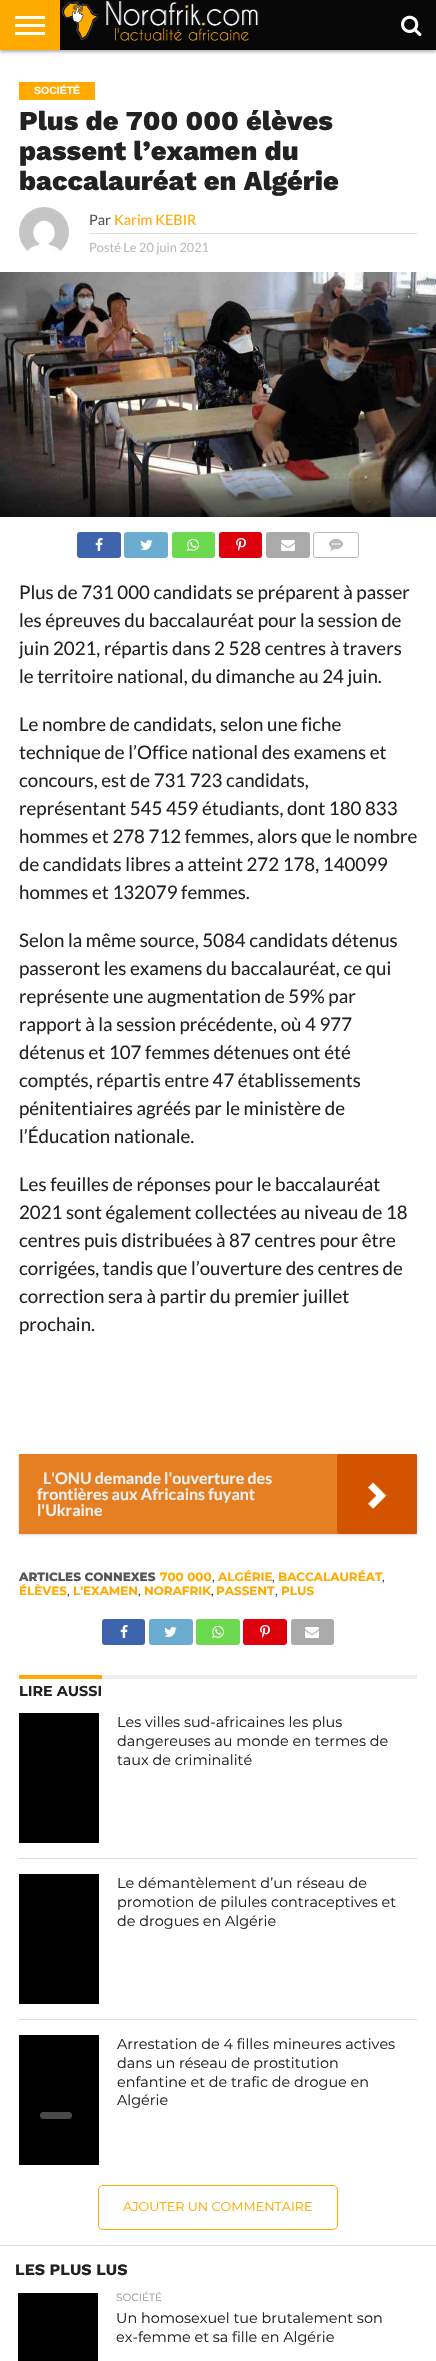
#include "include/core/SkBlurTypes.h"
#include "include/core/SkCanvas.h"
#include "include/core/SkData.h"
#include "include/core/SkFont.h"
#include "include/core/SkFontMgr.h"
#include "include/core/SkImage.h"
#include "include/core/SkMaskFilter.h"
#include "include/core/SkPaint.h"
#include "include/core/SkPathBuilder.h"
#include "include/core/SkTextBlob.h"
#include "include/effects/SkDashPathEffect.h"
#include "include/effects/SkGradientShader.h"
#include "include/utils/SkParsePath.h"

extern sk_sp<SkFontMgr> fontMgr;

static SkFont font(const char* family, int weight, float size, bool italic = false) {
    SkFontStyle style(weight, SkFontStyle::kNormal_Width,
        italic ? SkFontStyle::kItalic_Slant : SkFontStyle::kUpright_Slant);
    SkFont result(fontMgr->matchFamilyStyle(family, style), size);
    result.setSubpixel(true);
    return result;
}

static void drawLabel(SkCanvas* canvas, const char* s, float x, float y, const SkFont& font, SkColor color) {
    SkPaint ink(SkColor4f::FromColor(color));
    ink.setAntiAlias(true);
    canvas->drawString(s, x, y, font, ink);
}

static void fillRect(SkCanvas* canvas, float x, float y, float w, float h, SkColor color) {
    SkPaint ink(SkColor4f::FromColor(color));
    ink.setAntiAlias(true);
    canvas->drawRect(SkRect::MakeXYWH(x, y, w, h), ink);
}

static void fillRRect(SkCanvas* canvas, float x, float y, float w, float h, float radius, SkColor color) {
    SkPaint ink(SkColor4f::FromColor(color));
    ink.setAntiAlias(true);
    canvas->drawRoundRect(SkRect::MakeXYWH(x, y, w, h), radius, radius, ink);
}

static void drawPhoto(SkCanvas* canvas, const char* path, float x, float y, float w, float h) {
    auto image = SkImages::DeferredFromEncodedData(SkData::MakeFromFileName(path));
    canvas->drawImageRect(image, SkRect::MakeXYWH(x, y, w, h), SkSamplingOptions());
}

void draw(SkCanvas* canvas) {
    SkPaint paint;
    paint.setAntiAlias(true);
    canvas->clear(0xFFFFFFFF);
    paint.setColor(0x4D000000);
    paint.setMaskFilter(SkMaskFilter::MakeBlur(kNormal_SkBlurStyle, 1.5f));
    canvas->drawRect(SkRect::MakeXYWH(0, 2, 436, 50), paint);
    paint.setMaskFilter(nullptr);
    fillRect(canvas, 60, 0, 376, 50, 0xFF080808);
    fillRect(canvas, 0, 0, 60, 50, 0xFFFFAA00);
    fillRect(canvas, 15, 16, 30, 3, 0xFFFFFFFF);
    fillRect(canvas, 15, 24, 30, 3, 0xFFFFFFFF);
    fillRect(canvas, 15, 32, 30, 3, 0xFFFFFFFF);
    drawPhoto(canvas, "assets/img1.png", 61, 0, 198, 41);
    drawPhoto(canvas, "assets/img2.png", 401, 15, 21, 22);
    fillRect(canvas, 0, 2245, 436, 1, 0xFFDDDDDD);
    fillRect(canvas, 19, 82, 76, 18, 0xFFFFAA00);
    SkFont font1 = font("Liberation Sans", 700, 10.5f);
    drawLabel(canvas, "SOCIÉTÉ", 34, 94, font1, 0xFFFFFFFF);
    SkFont font2 = font("Work Sans", 800, 27.25f);
    drawLabel(canvas, "Plus de 700 000 élèves", 19, 130, font2, 0xFF222222);
    drawLabel(canvas, "passent l’examen du", 19, 160, font2, 0xFF222222);
    drawLabel(canvas, "baccalauréat en Algérie", 19, 190, font2, 0xFF222222);
    drawPhoto(canvas, "assets/img3.png", 19, 207, 50, 47);
    fillRect(canvas, 89, 233, 328, 1, 0xFFDDDDDD);
    SkFont font3 = font("Lato", 400, 14.4f);
    drawLabel(canvas, "Par", 89, 225, font3, 0xFF555555);
    drawLabel(canvas, "Karim KEBIR", 114, 225, font3, 0xFFFFAA00);
    SkFont font4 = font("Lato", 400, 12.75f);
    drawLabel(canvas, "Posté Le 20 juin 2021", 89, 252, font4, 0xFFBBBBBB);
    drawPhoto(canvas, "assets/img4.png", 0, 272, 436, 245);
    {
        const SkColor colors[] = {0x00000000, 0x66000000, 0x99000000};
        const float stops[] = {0, 0.5f, 1};
        const SkPoint ends[] = {{218, 477}, {218, 517}};
        paint.setShader(SkGradientShader::MakeLinear(ends, colors, stops, 3, SkTileMode::kClamp));
        paint.setAlpha(255);
    }
    canvas->drawRect(SkRect::MakeXYWH(0, 478, 436, 39), paint);
    fillRRect(canvas, 77, 532, 44, 26, 3, 0xFF3E64AD);
    drawPhoto(canvas, "assets/img5.png", 95, 538, 8, 13);
    fillRRect(canvas, 124, 532, 44, 26, 3, 0xFF6AADD1);
    drawPhoto(canvas, "assets/img6.png", 140, 540, 13, 10);
    fillRRect(canvas, 172, 532, 43, 26, 3, 0xFF6CD94E);
    drawPhoto(canvas, "assets/img7.png", 187, 539, 12, 12);
    fillRRect(canvas, 219, 532, 43, 26, 3, 0xFFDE010D);
    drawPhoto(canvas, "assets/img8.png", 236, 538, 10, 13);
    fillRRect(canvas, 266, 532, 44, 26, 3, 0xFFAAAAAA);
    drawPhoto(canvas, "assets/img9.png", 281, 540, 14, 11);
    paint.setStroke(true);
    paint.setStrokeWidth(1);
    paint.setShader(nullptr);
    paint.setColor(0xFFBBBBBB);
    canvas->drawRoundRect(SkRect::MakeXYWH(313.5f, 532.5f, 45, 25), 2.5f, 2.5f, paint);
    drawPhoto(canvas, "assets/img10.png", 329, 539, 14, 12);
    SkFont font5 = font("Lato", 400, 18.7f);
    drawLabel(canvas, "Plus de 731 000 candidats se préparent à passer", 19, 599, font5, 0xFF222222);
    drawLabel(canvas, "les épreuves du baccalauréat pour la session de", 19, 627, font5, 0xFF222222);
    drawLabel(canvas, "juin 2021, répartis dans 2 528 centres à travers", 19, 655, font5, 0xFF222222);
    drawLabel(canvas, "le territoire national, du dimanche au 24 juin.", 19, 683, font5, 0xFF222222);
    drawLabel(canvas, "Le nombre de candidats, selon une fiche", 19, 731, font5, 0xFF222222);
    drawLabel(canvas, "technique de l’Office national des examens et", 19, 759, font5, 0xFF222222);
    drawLabel(canvas, "concours, est de 731 723 candidats,", 19, 787, font5, 0xFF222222);
    drawLabel(canvas, "représentant 545 459 étudiants, dont 180 833", 19, 815, font5, 0xFF222222);
    drawLabel(canvas, "hommes et 278 712 femmes, alors que le nombre", 19, 843, font5, 0xFF222222);
    drawLabel(canvas, "de candidats libres a atteint 272 178, 140099", 19, 871, font5, 0xFF222222);
    drawLabel(canvas, "hommes et 132079 femmes.", 19, 899, font5, 0xFF222222);
    drawLabel(canvas, "Selon la même source, 5084 candidats détenus", 19, 947, font5, 0xFF222222);
    drawLabel(canvas, "passeront les examens du baccalauréat, ce qui", 19, 975, font5, 0xFF222222);
    drawLabel(canvas, "représente une augmentation de 59% par", 19, 1003, font5, 0xFF222222);
    drawLabel(canvas, "rapport à la session précédente, où 4 977", 19, 1031, font5, 0xFF222222);
    drawLabel(canvas, "détenus et 107 femmes détenues ont été", 19, 1059, font5, 0xFF222222);
    drawLabel(canvas, "comptés, répartis entre 47 établissements", 19, 1087, font5, 0xFF222222);
    drawLabel(canvas, "pénitentiaires agréés par le ministère de", 19, 1115, font5, 0xFF222222);
    drawLabel(canvas, "l’Éducation nationale.", 19, 1143, font5, 0xFF222222);
    drawLabel(canvas, "Les feuilles de réponses pour le baccalauréat", 19, 1191, font5, 0xFF222222);
    drawLabel(canvas, "2021 sont également collectées au niveau de 18", 19, 1219, font5, 0xFF222222);
    drawLabel(canvas, "centres puis distribuées à 87 centres pour être", 19, 1247, font5, 0xFF222222);
    drawLabel(canvas, "corrigées, tandis que l’ouverture des centres de", 19, 1275, font5, 0xFF222222);
    drawLabel(canvas, "correction sera à partir du premier juillet", 19, 1303, font5, 0xFF222222);
    drawLabel(canvas, "prochain.", 19, 1331, font5, 0xFF222222);
    paint.setStroke(false);
    paint.setColor(0x2B000000);
    paint.setMaskFilter(SkMaskFilter::MakeBlur(kNormal_SkBlurStyle, 1));
    canvas->drawRect(SkRect::MakeXYWH(19, 1455, 398, 80), paint);
    paint.setMaskFilter(nullptr);
    fillRect(canvas, 19, 1454, 398, 80, 0xFFE67E22);
    SkFont font6 = font("Lato", 700, 16);
    drawLabel(canvas, "L'ONU demande l'ouverture des", 43, 1484, font6, 0xFFECF0F1);
    drawLabel(canvas, "frontières aux Africains fuyant", 37, 1500, font6, 0xFFECF0F1);
    drawLabel(canvas, "l'Ukraine", 37, 1516, font6, 0xFFECF0F1);
    fillRRect(canvas, 337, 1454, 80, 80, 3, 0xFFD35400);
    drawPhoto(canvas, "assets/img11.png", 368, 1482, 19, 27);
    SkFont font7 = font("Montserrat", 800, 12);
    drawLabel(canvas, "ARTICLES CONNEXES", 19, 1581, font7, 0xFF555555);
    SkFont font8 = font("Montserrat", 700, 12);
    drawLabel(canvas, "700 000", 160, 1581, font8, 0xFFFFAA00);
    SkFont font9 = font("Montserrat", 400, 12);
    drawLabel(canvas, ",", 212, 1581, font9, 0xFF222222);
    drawLabel(canvas, "ALGÉRIE", 218, 1581, font8, 0xFFFFAA00);
    drawLabel(canvas, ",", 272, 1581, font9, 0xFF222222);
    drawLabel(canvas, "BACCALAURÉAT", 278, 1581, font8, 0xFFFFAA00);
    drawLabel(canvas, ",", 382, 1581, font9, 0xFF222222);
    drawLabel(canvas, "ÉLÈVES", 19, 1595, font8, 0xFFFFAA00);
    drawLabel(canvas, ",", 67, 1595, font9, 0xFF222222);
    drawLabel(canvas, "L'EXAMEN", 73, 1595, font8, 0xFFFFAA00);
    drawLabel(canvas, ",", 138, 1595, font9, 0xFF222222);
    drawLabel(canvas, "NORAFRIK", 144, 1595, font8, 0xFFFFAA00);
    drawLabel(canvas, ",", 211, 1595, font9, 0xFF222222);
    drawLabel(canvas, "PASSENT", 216, 1595, font8, 0xFFFFAA00);
    drawLabel(canvas, ",", 275, 1595, font9, 0xFF222222);
    drawLabel(canvas, "PLUS", 281, 1595, font8, 0xFFFFAA00);
    fillRRect(canvas, 102, 1619, 43, 26, 3, 0xFF3E64AD);
    drawPhoto(canvas, "assets/img5.png", 120, 1625, 8, 13);
    fillRRect(canvas, 149, 1619, 44, 26, 3, 0xFF6AADD1);
    drawPhoto(canvas, "assets/img6.png", 164, 1627, 13, 10);
    fillRRect(canvas, 196, 1619, 44, 26, 3, 0xFF6CD94E);
    drawPhoto(canvas, "assets/img7.png", 212, 1626, 12, 12);
    fillRRect(canvas, 243, 1619, 44, 26, 3, 0xFFDE010D);
    drawPhoto(canvas, "assets/img8.png", 260, 1625, 10, 13);
    fillRRect(canvas, 291, 1619, 43, 26, 3, 0xFFAAAAAA);
    drawPhoto(canvas, "assets/img9.png", 305, 1627, 14, 11);
    fillRect(canvas, 102, 1675, 315, 4, 0xFFEEEEEE);
    fillRect(canvas, 19, 1675, 83, 4, 0xFFFFAA00);
    SkFont font10 = font("Montserrat", 700, 14.4f);
    drawLabel(canvas, "LIRE AUSSI", 19, 1696, font10, 0xFF222222);
    fillRect(canvas, 19, 1713, 80, 130, 0xFF000000);
    SkFont font11 = font("Montserrat", 400, 14.4f);
    drawLabel(canvas, "Les villes sud-africaines les plus", 117, 1727, font11, 0xFF222222);
    drawLabel(canvas, "dangereuses au monde en termes de", 117, 1746, font11, 0xFF222222);
    drawLabel(canvas, "taux de criminalité", 117, 1765, font11, 0xFF222222);
    fillRect(canvas, 19, 1858, 398, 1, 0xFFDDDDDD);
    fillRect(canvas, 19, 1874, 80, 130, 0xFF000000);
    drawLabel(canvas, "Le démantèlement d’un réseau de", 117, 1888, font11, 0xFF222222);
    drawLabel(canvas, "promotion de pilules contraceptives et", 117, 1907, font11, 0xFF222222);
    drawLabel(canvas, "de drogues en Algérie", 117, 1926, font11, 0xFF222222);
    fillRect(canvas, 19, 2019, 398, 1, 0xFFDDDDDD);
    fillRect(canvas, 19, 2035, 80, 130, 0xFF000000);
    drawLabel(canvas, "Arrestation de 4 filles mineures actives", 117, 2049, font11, 0xFF222222);
    drawLabel(canvas, "dans un réseau de prostitution", 117, 2068, font11, 0xFF222222);
    drawLabel(canvas, "enfantine et de trafic de drogue en", 117, 2087, font11, 0xFF222222);
    drawLabel(canvas, "Algérie", 117, 2105, font11, 0xFF222222);
    paint.setStroke(true);
    paint.setColor(0xFFFFAA00);
    canvas->drawRoundRect(SkRect::MakeXYWH(98.5f, 2185.5f, 239, 44), 4.5f, 4.5f, paint);
    SkFont font12 = font("Montserrat", 400, 12.75f);
    drawLabel(canvas, "AJOUTER UN COMMENTAIRE", 123, 2211, font12, 0xFFFFAA00);
    SkFont font13 = font("Work Sans", 700, 16);
    drawLabel(canvas, "LES PLUS LUS", 15, 2275, font13, 0xFF222222);
    fillRect(canvas, 18, 2293, 80, 68, 0xFF000000);
    SkFont font14 = font("Montserrat", 400, 10.5f);
    drawLabel(canvas, "SOCIÉTÉ", 116, 2301, font14, 0xFF999999);
    drawLabel(canvas, "Un homosexuel tue brutalement son", 116, 2323, font11, 0xFF222222);
    drawLabel(canvas, "ex-femme et sa fille en Algérie", 116, 2342, font11, 0xFF222222);
    fillRRect(canvas, 40, 2112, 32, 7, 3.5f, 0xFF494949);
}
